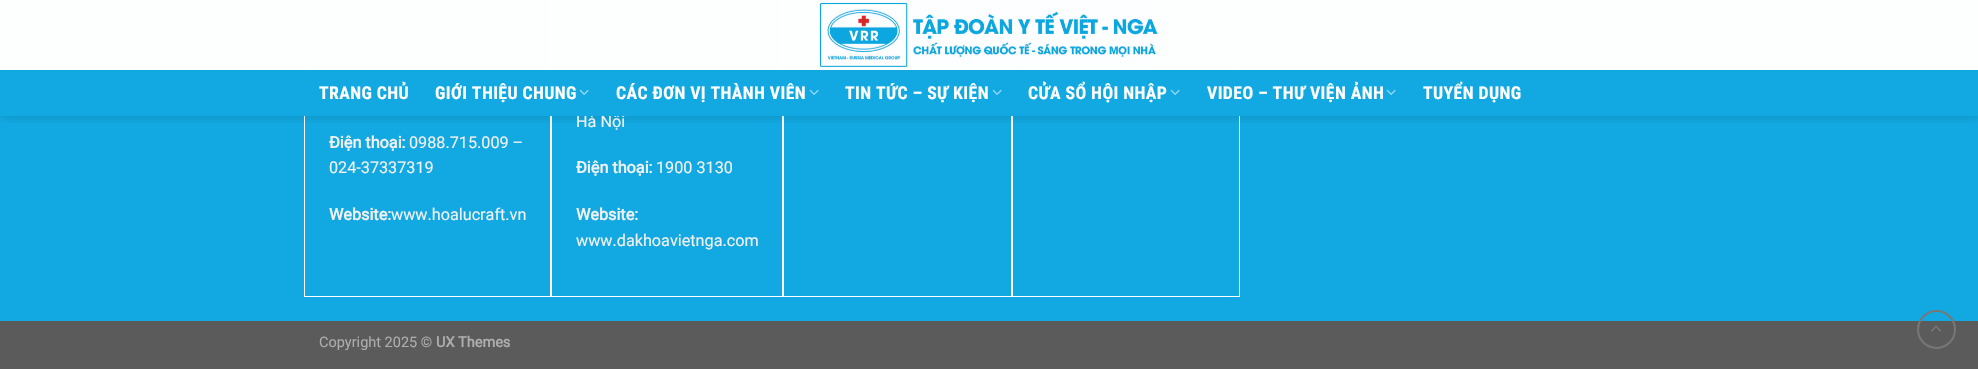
#include "include/core/SkBlurTypes.h"
#include "include/core/SkCanvas.h"
#include "include/core/SkData.h"
#include "include/core/SkFont.h"
#include "include/core/SkFontMgr.h"
#include "include/core/SkImage.h"
#include "include/core/SkMaskFilter.h"
#include "include/core/SkPaint.h"
#include "include/core/SkPathBuilder.h"
#include "include/core/SkTextBlob.h"
#include "include/effects/SkDashPathEffect.h"
#include "include/effects/SkGradientShader.h"
#include "include/utils/SkParsePath.h"

extern sk_sp<SkFontMgr> fontMgr;

static SkFont font(const char* family, int weight, float size, bool italic = false) {
    SkFontStyle style(weight, SkFontStyle::kNormal_Width,
        italic ? SkFontStyle::kItalic_Slant : SkFontStyle::kUpright_Slant);
    SkFont result(fontMgr->matchFamilyStyle(family, style), size);
    result.setSubpixel(true);
    return result;
}

static void drawLabel(SkCanvas* canvas, const char* s, float x, float y, const SkFont& font, SkColor color) {
    SkPaint ink(SkColor4f::FromColor(color));
    ink.setAntiAlias(true);
    canvas->drawString(s, x, y, font, ink);
}

static void drawTracked(SkCanvas* canvas, const char* s, float x, float y, const SkFont& font, const SkPaint& ink, float letter, float word) {
    std::vector<SkGlyphID> glyphs(font.countText(s, strlen(s), SkTextEncoding::kUTF8));
    std::vector<float> xs(glyphs.size());
    font.textToGlyphs(s, strlen(s), SkTextEncoding::kUTF8, glyphs);
    font.getXPos(glyphs, xs, x);
    float extra = 0;
    for (size_t i = 0; i < glyphs.size(); i++) {
        xs[i] += extra;
        extra += letter + word * (glyphs[i] == font.unicharToGlyph(' '));
    }
    canvas->drawTextBlob(SkTextBlob::MakeFromPosHGlyphs(glyphs, xs, y, font), 0, 0, ink);
}

static void fillRect(SkCanvas* canvas, float x, float y, float w, float h, SkColor color) {
    SkPaint ink(SkColor4f::FromColor(color));
    ink.setAntiAlias(true);
    canvas->drawRect(SkRect::MakeXYWH(x, y, w, h), ink);
}

static void drawPhoto(SkCanvas* canvas, const char* path, float x, float y, float w, float h) {
    auto image = SkImages::DeferredFromEncodedData(SkData::MakeFromFileName(path));
    canvas->drawImageRect(image, SkRect::MakeXYWH(x, y, w, h), SkSamplingOptions());
}

void draw(SkCanvas* canvas) {
    SkPaint paint;
    paint.setAntiAlias(true);
    canvas->clear(0xFF12A9E2);
    paint.setStroke(true);
    paint.setStrokeWidth(1);
    paint.setColor(0xFFFFFFFF);
    canvas->drawRect(SkRect::MakeXYWH(304.5f, -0.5f, 246, 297), paint);
    fillRect(canvas, 329, 12, 30, 3, 0xFF59C3EB);
    canvas->drawRect(SkRect::MakeXYWH(551.5f, -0.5f, 231, 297), paint);
    fillRect(canvas, 576, 12, 30, 3, 0xFF59C3EB);
    canvas->drawRect(SkRect::MakeXYWH(783.5f, -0.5f, 228, 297), paint);
    canvas->drawRect(SkRect::MakeXYWH(1012.5f, -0.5f, 227, 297), paint);
    canvas->save();
    canvas->clipRect(SkRect::MakeXYWH(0, 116, 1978, 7));
    paint.setStroke(false);
    paint.setColor(0x26000000);
    paint.setMaskFilter(SkMaskFilter::MakeBlur(kNormal_SkBlurStyle, 5));
    canvas->drawRect(SkRect::MakeXYWH(1, 1, 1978, 116), paint);
    paint.setMaskFilter(nullptr);
    canvas->restore();
    fillRect(canvas, 0, 0, 1978, 70, 0xE6FFFFFF);
    fillRect(canvas, 0, 0, 1978, 70, 0xE6FFFFFF);
    drawPhoto(canvas, "assets/img1.png", 819, 2, 339, 65);
    SkFont font1 = font("Roboto", 400, 16.2f);
    drawLabel(canvas, "Hà Nội", 576, 127, font1, 0xFFF1F1F1);
    fillRect(canvas, 304, 70, 936, 46, 0xFF12A9E2);
    SkFont font2 = font("Roboto Condensed", 700, 17.75f);
    paint.setColor(0xFFFFFFFF);
    drawTracked(canvas, "TRANG CHỦ", 319, 99, font2, paint, 0.4f, 0);
    drawTracked(canvas, "GIỚI THIỆU CHUNG", 435, 99, font2, paint, 0.4f, 0);
    drawPhoto(canvas, "assets/img2.png", 579, 89, 10, 6);
    drawTracked(canvas, "CÁC ĐƠN VỊ THÀNH VIÊN", 616, 99, font2, paint, 0.4f, 0);
    drawPhoto(canvas, "assets/img2.png", 809, 89, 10, 6);
    drawTracked(canvas, "TIN TỨC – SỰ KIỆN", 845, 99, font2, paint, 0.4f, 0);
    drawPhoto(canvas, "assets/img2.png", 992, 89, 10, 6);
    drawTracked(canvas, "CỬA SỔ HỘI NHẬP", 1028, 99, font2, paint, 0.4f, 0);
    drawPhoto(canvas, "assets/img2.png", 1170, 89, 10, 6);
    drawTracked(canvas, "VIDEO – THƯ VIỆN ẢNH", 1207, 99, font2, paint, 0.4f, 0);
    drawPhoto(canvas, "assets/img2.png", 1386, 89, 10, 6);
    drawTracked(canvas, "TUYỂN DỤNG", 1423, 99, font2, paint, 0.4f, 0);
    SkFont font3 = font("Roboto", 700, 16.2f);
    drawLabel(canvas, "Điện thoại:", 329, 148, font3, 0xFFF1F1F1);
    drawLabel(canvas, "0988.715.009 –", 409, 148, font1, 0xFFF1F1F1);
    drawLabel(canvas, "024-37337319", 329, 173, font1, 0xFFF1F1F1);
    drawLabel(canvas, "Website:", 329, 220, font3, 0xFFF1F1F1);
    drawLabel(canvas, "www.hoalucraft.vn", 391, 220, font1, 0xFFF1F1F1);
    drawLabel(canvas, "Điện thoại:", 576, 173, font3, 0xFFF1F1F1);
    drawLabel(canvas, "1900 3130", 656, 173, font1, 0xFFF1F1F1);
    drawLabel(canvas, "Website:", 576, 220, font3, 0xFFF1F1F1);
    drawLabel(canvas, "www.dakhoavietnga.com", 576, 246, font1, 0xFFF1F1F1);
    fillRect(canvas, 0, 321, 1978, 48, 0xFF5B5B5B);
    SkFont font4 = font("Roboto", 400, 14.5f);
    drawLabel(canvas, "Copyright 2025 ©", 319, 347, font4, 0xFFADADAD);
    SkFont font5 = font("Roboto", 700, 14.5f);
    drawLabel(canvas, "UX Themes", 436, 347, font5, 0xFFADADAD);
    paint.setStroke(true);
    paint.setStrokeWidth(2);
    paint.setColor(0xFF777777);
    canvas->drawCircle(1936.5f, 329.5f, 18.5f, paint);
    drawPhoto(canvas, "assets/img3.png", 1931, 325, 10, 7);
}
